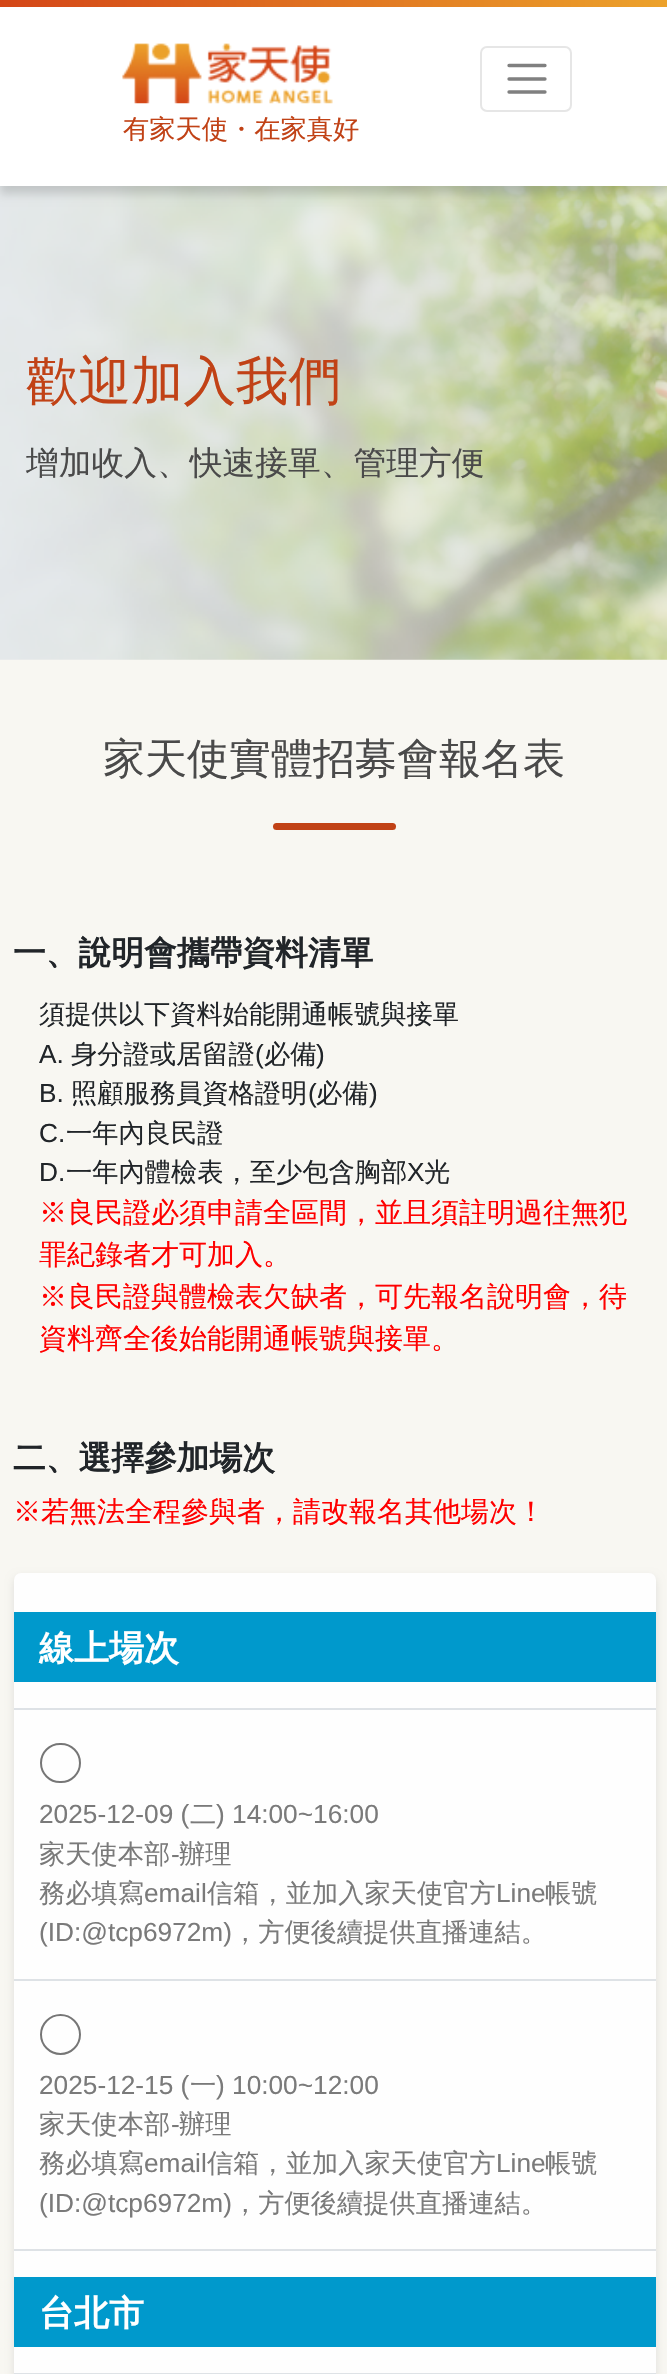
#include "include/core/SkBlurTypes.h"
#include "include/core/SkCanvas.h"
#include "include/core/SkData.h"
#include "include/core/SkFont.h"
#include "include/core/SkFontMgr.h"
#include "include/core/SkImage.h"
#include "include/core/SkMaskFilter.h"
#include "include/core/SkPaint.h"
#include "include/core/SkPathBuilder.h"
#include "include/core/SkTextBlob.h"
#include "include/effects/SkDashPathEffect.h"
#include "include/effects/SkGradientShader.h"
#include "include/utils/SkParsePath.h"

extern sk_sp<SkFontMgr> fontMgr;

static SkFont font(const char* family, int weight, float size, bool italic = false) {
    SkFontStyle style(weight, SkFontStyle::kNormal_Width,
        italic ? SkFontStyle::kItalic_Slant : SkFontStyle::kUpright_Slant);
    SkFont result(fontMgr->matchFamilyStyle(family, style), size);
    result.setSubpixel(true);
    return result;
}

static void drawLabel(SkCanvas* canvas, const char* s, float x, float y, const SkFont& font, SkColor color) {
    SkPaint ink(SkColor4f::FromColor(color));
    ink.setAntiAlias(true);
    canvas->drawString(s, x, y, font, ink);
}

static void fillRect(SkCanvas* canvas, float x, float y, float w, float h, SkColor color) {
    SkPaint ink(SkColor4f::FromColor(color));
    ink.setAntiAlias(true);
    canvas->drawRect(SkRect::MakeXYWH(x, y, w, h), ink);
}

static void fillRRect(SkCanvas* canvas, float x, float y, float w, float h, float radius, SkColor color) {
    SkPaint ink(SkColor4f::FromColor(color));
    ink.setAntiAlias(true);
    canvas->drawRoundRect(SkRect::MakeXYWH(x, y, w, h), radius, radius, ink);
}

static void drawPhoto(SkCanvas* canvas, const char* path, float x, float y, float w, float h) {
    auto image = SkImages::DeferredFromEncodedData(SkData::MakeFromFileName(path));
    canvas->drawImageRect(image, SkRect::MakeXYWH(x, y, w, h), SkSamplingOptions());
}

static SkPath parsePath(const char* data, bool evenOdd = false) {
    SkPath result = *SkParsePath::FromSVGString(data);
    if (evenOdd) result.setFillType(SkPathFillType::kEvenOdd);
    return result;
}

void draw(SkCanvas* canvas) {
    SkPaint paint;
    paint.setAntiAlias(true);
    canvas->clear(0xFFF8F7F2);
    drawPhoto(canvas, "assets/img2.png", 0, 186, 667, 474);
    paint.setColor(0x26000000);
    paint.setMaskFilter(SkMaskFilter::MakeBlur(kNormal_SkBlurStyle, 4.5f));
    canvas->drawRect(SkRect::MakeXYWH(0, 9, 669, 185), paint);
    paint.setMaskFilter(nullptr);
    fillRect(canvas, 0, 7, 667, 179, 0xFFFFFFFF);
    {
        const SkColor colors[] = {0xFFECA22B, 0xFFD44617};
        const float stops[] = {0, 1};
        const SkPoint ends[] = {{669, 3.5f}, {0, 3.5f}};
        paint.setShader(SkGradientShader::MakeLinear(ends, colors, stops, 2, SkTileMode::kClamp));
        paint.setAlpha(255);
    }
    canvas->drawRect(SkRect::MakeXYWH(0, 0, 667, 7), paint);
    paint.setStroke(true);
    paint.setStrokeWidth(2);
    paint.setShader(nullptr);
    paint.setColor(0xFFE6E6E6);
    canvas->drawRoundRect(SkRect::MakeXYWH(481, 47, 90, 64), 6, 6, paint);
    paint.setStrokeWidth(3.3f);
    paint.setStrokeCap(SkPaint::kRound_Cap);
    paint.setColor(0xFF808080);
    canvas->drawPath(parsePath("M509 65.5H545M509 79H545M509 92H545"), paint);
    drawPhoto(canvas, "assets/img1.png", 122, 43, 211, 61);
    SkFont font1 = font("WenQuanYi Zen Hei", 500, 26.25f);
    drawLabel(canvas, "有家天使・在家真好", 123, 138, font1, 0xFFC14216);
    SkFont font2 = font("WenQuanYi Zen Hei", 500, 52.5f);
    drawLabel(canvas, "歡迎加入我們", 26, 399, font2, 0xFFC14216);
    SkFont font3 = font("WenQuanYi Zen Hei", 500, 32.75f);
    drawLabel(canvas, "增加收入、快速接單、管理方便", 26, 474, font3, 0xFF4A4A4A);
    SkFont font4 = font("WenQuanYi Zen Hei", 500, 42);
    drawLabel(canvas, "家天使實體招募會報名表", 103, 773, font4, 0xFF4A4A4A);
    fillRRect(canvas, 273, 823, 123, 7, 3.5f, 0xFFC14216);
    SkFont font5 = font("WenQuanYi Zen Hei", 700, 32.75f);
    drawLabel(canvas, "一、說明會攜帶資料清單", 13, 964, font5, 0xFF212529);
    drawLabel(canvas, "須提供以下資料始能開通帳號與接單", 39, 1023, font1, 0xFF212529);
    SkFont font6 = font("Liberation Sans", 400, 26.25f);
    drawLabel(canvas, "A.", 39, 1063, font6, 0xFF212529);
    drawLabel(canvas, "身分證或居留證", 71, 1063, font1, 0xFF212529);
    drawLabel(canvas, "(", 255, 1063, font6, 0xFF212529);
    drawLabel(canvas, "必備", 264, 1063, font1, 0xFF212529);
    drawLabel(canvas, ")", 316, 1063, font6, 0xFF212529);
    drawLabel(canvas, "B.", 39, 1102, font6, 0xFF212529);
    drawLabel(canvas, "照顧服務員資格證明", 71, 1102, font1, 0xFF212529);
    drawLabel(canvas, "(", 308, 1102, font6, 0xFF212529);
    drawLabel(canvas, "必備", 316, 1102, font1, 0xFF212529);
    drawLabel(canvas, ")", 369, 1102, font6, 0xFF212529);
    drawLabel(canvas, "C.", 39, 1142, font6, 0xFF212529);
    drawLabel(canvas, "一年內良民證", 66, 1142, font1, 0xFF212529);
    drawLabel(canvas, "D.", 39, 1181, font6, 0xFF212529);
    drawLabel(canvas, "一年內體檢表，至少包含胸部", 66, 1181, font1, 0xFF212529);
    drawLabel(canvas, "X", 407, 1181, font6, 0xFF212529);
    drawLabel(canvas, "光", 424, 1181, font1, 0xFF212529);
    SkFont font7 = font("WenQuanYi Zen Hei", 500, 28);
    drawLabel(canvas, "※良民證必須申請全區間，並且須註明過往無犯", 39, 1222, font7, 0xFFFF0000);
    drawLabel(canvas, "罪紀錄者才可加入。", 39, 1264, font7, 0xFFFF0000);
    drawLabel(canvas, "※良民證與體檢表欠缺者，可先報名說明會，待", 39, 1306, font7, 0xFFFF0000);
    drawLabel(canvas, "資料齊全後始能開通帳號與接單。", 39, 1348, font7, 0xFFFF0000);
    drawLabel(canvas, "二、選擇參加場次", 13, 1469, font5, 0xFF212529);
    drawLabel(canvas, "※若無法全程參與者，請改報名其他場次！", 13, 1521, font7, 0xFFFF0000);
    paint.setStroke(false);
    paint.setColor(0x1A000000);
    paint.setMaskFilter(SkMaskFilter::MakeBlur(kNormal_SkBlurStyle, 4.5f));
    canvas->drawRoundRect(SkRect::MakeXYWH(14, 1577, 642, 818), 7, 7, paint);
    paint.setMaskFilter(nullptr);
    fillRRect(canvas, 14, 1573, 642, 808, 7, 0xFFFEFEFE);
    fillRect(canvas, 14, 1708, 642, 2, 0xFFDEE2E6);
    fillRect(canvas, 14, 1612, 642, 70, 0xFF0099CC);
    SkFont font8 = font("WenQuanYi Zen Hei", 700, 35);
    drawLabel(canvas, "線上場次", 39, 1660, font8, 0xFFFFFFFF);
    fillRect(canvas, 14, 1979, 642, 2, 0xFFDEE2E6);
    paint.setStroke(true);
    paint.setStrokeWidth(2);
    paint.setStrokeCap(SkPaint::kButt_Cap);
    paint.setColor(0xFF767676);
    canvas->drawRoundRect(SkRect::MakeXYWH(41, 1744, 39, 38), 19, 19, paint);
    drawLabel(canvas, "2025-12-09 (", 39, 1823, font6, 0xFF7A7A7A);
    drawLabel(canvas, "二", 190, 1823, font1, 0xFF7A7A7A);
    drawLabel(canvas, ") 14:00~16:00", 216, 1823, font6, 0xFF7A7A7A);
    drawLabel(canvas, "家天使本部", 39, 1863, font1, 0xFF7A7A7A);
    drawLabel(canvas, "-", 171, 1863, font6, 0xFF7A7A7A);
    drawLabel(canvas, "辦理", 179, 1863, font1, 0xFF7A7A7A);
    drawLabel(canvas, "務必填寫", 39, 1902, font1, 0xFF7A7A7A);
    drawLabel(canvas, "email", 144, 1902, font6, 0xFF7A7A7A);
    drawLabel(canvas, "信箱，並加入家天使官方", 207, 1902, font1, 0xFF7A7A7A);
    drawLabel(canvas, "Line", 496, 1902, font6, 0xFF7A7A7A);
    drawLabel(canvas, "帳號", 545, 1902, font1, 0xFF7A7A7A);
    drawLabel(canvas, "(ID:@tcp6972m)", 39, 1941, font6, 0xFF7A7A7A);
    drawLabel(canvas, "，方便後續提供直播連結。", 232, 1941, font1, 0xFF7A7A7A);
    fillRect(canvas, 14, 2249, 642, 2, 0xFFDEE2E6);
    canvas->drawCircle(60.5f, 2034.5f, 19.5f, paint);
    drawLabel(canvas, "2025-12-15 (", 39, 2094, font6, 0xFF7A7A7A);
    drawLabel(canvas, "一", 190, 2094, font1, 0xFF7A7A7A);
    drawLabel(canvas, ") 10:00~12:00", 216, 2094, font6, 0xFF7A7A7A);
    drawLabel(canvas, "家天使本部", 39, 2133, font1, 0xFF7A7A7A);
    drawLabel(canvas, "-", 171, 2133, font6, 0xFF7A7A7A);
    drawLabel(canvas, "辦理", 179, 2133, font1, 0xFF7A7A7A);
    drawLabel(canvas, "務必填寫", 39, 2172, font1, 0xFF7A7A7A);
    drawLabel(canvas, "email", 144, 2172, font6, 0xFF7A7A7A);
    drawLabel(canvas, "信箱，並加入家天使官方", 207, 2172, font1, 0xFF7A7A7A);
    drawLabel(canvas, "Line", 496, 2172, font6, 0xFF7A7A7A);
    drawLabel(canvas, "帳號", 545, 2172, font1, 0xFF7A7A7A);
    drawLabel(canvas, "(ID:@tcp6972m)", 39, 2212, font6, 0xFF7A7A7A);
    drawLabel(canvas, "，方便後續提供直播連結。", 232, 2212, font1, 0xFF7A7A7A);
    fillRect(canvas, 14, 2373, 642, 1, 0xFFDEE2E6);
    fillRect(canvas, 14, 2277, 642, 70, 0xFF0099CC);
    drawLabel(canvas, "台北市", 39, 2325, font8, 0xFFFFFFFF);
}
